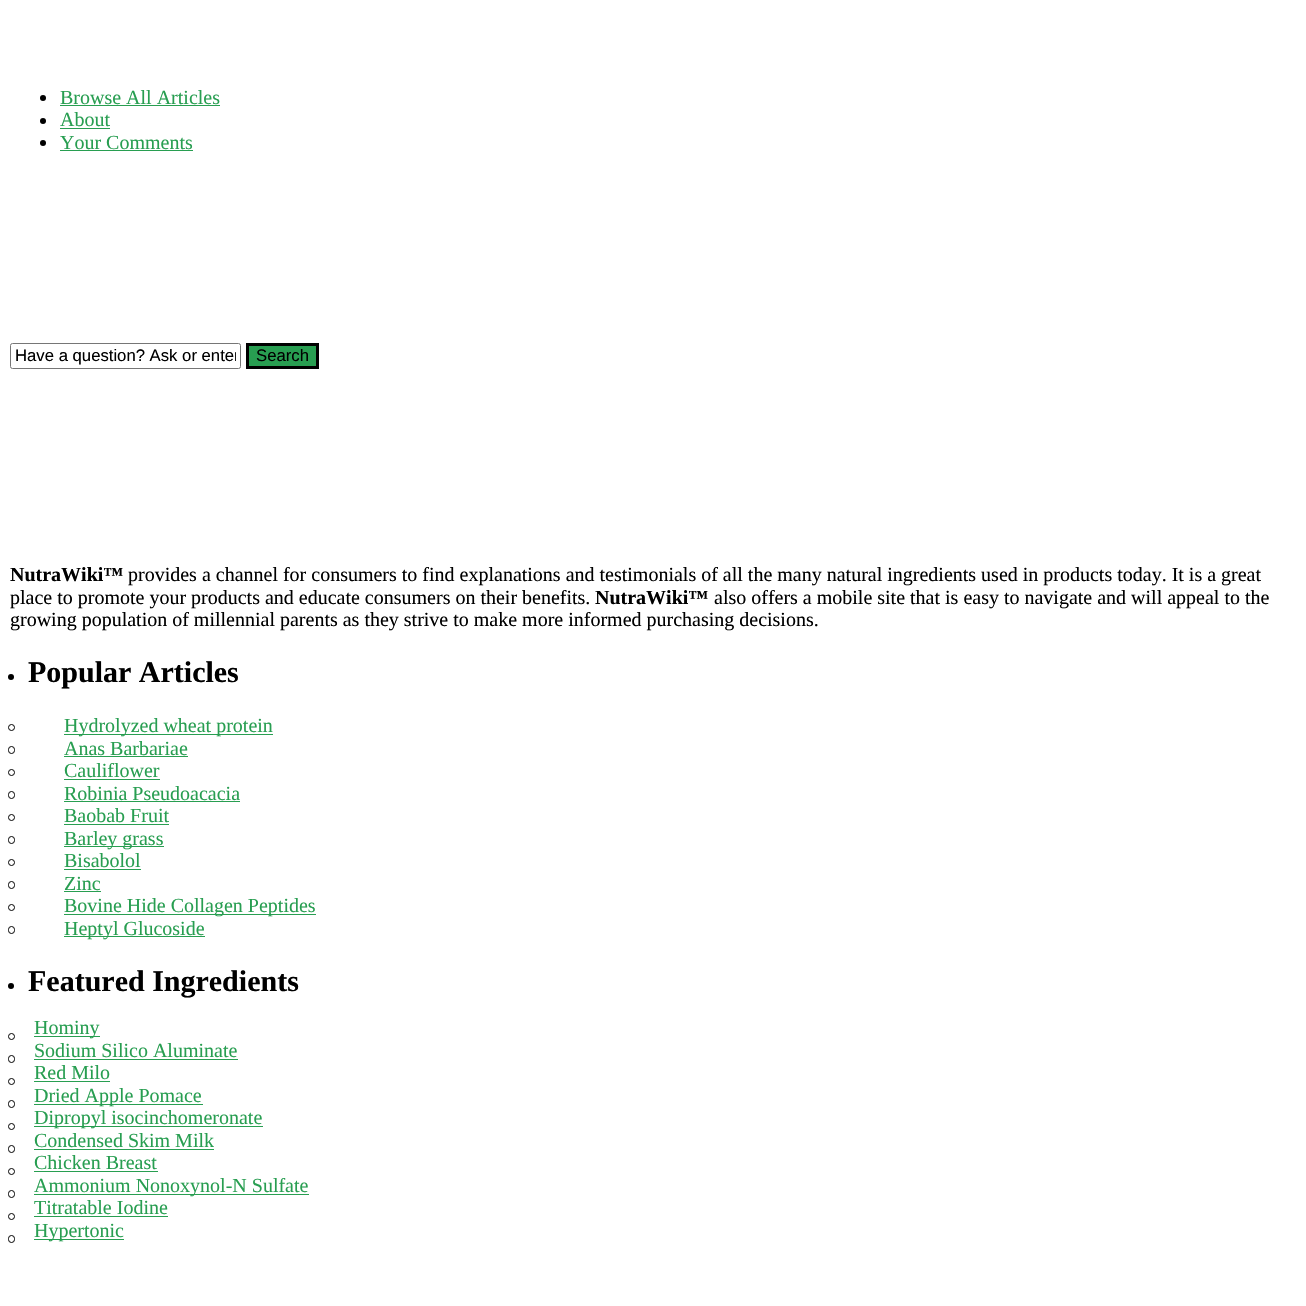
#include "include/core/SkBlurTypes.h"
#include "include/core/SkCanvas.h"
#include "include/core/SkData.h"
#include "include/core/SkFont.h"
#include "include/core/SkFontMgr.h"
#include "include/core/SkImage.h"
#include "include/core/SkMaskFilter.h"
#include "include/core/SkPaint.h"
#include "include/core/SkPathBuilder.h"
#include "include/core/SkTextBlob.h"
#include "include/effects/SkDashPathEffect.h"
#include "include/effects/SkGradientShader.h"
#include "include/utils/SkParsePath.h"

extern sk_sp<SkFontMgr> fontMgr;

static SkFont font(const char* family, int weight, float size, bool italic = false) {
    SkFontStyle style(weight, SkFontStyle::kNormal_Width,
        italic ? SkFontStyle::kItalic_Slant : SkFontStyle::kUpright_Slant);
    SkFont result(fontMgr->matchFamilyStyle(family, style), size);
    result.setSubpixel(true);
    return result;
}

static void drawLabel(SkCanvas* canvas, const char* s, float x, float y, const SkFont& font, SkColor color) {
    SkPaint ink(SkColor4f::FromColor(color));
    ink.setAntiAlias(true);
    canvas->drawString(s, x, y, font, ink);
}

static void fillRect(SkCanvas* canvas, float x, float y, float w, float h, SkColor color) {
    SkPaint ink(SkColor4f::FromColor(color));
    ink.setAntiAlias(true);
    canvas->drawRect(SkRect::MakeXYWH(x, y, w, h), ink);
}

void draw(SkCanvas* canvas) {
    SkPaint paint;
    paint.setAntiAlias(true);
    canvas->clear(0xFFFFFFFF);
    paint.setColor(0xFF000000);
    canvas->drawCircle(43, 98, 3, paint);
    SkFont font1 = font("Liberation Serif", 400, 20);
    drawLabel(canvas, "Browse All Articles", 60, 104, font1, 0xFF289E51);
    fillRect(canvas, 60, 105, 160, 1, 0xFF289E51);
    canvas->drawCircle(43, 121, 3, paint);
    drawLabel(canvas, "About", 60, 126, font1, 0xFF289E51);
    fillRect(canvas, 60, 128, 50, 1, 0xFF289E51);
    canvas->drawCircle(43, 143, 3, paint);
    drawLabel(canvas, "Your Comments", 60, 149, font1, 0xFF289E51);
    fillRect(canvas, 60, 150, 133, 1, 0xFF289E51);
    paint.setStroke(true);
    paint.setStrokeWidth(1);
    paint.setColor(0xFF767676);
    canvas->drawRoundRect(SkRect::MakeXYWH(10.5f, 343.5f, 230, 25), 2, 2, paint);
    canvas->save();
    canvas->clipRect(SkRect::MakeXYWH(15, 346, 221, 19));
    SkFont font2 = font("Liberation Sans", 400, 16.7f);
    drawLabel(canvas, "Have a question? Ask or enter", 15, 361, font2, 0xFF000000);
    canvas->restore();
    paint.setStroke(false);
    paint.setColor(0xFF289E51);
    canvas->drawRect(SkRect::MakeXYWH(247.5f, 344.5f, 70, 23), paint);
    paint.setStroke(true);
    paint.setStrokeWidth(3);
    paint.setColor(0xFF000000);
    canvas->drawRect(SkRect::MakeXYWH(247.5f, 344.5f, 70, 23), paint);
    drawLabel(canvas, "Search", 256, 361, font2, 0xFF000000);
    SkFont font3 = font("Liberation Serif", 700, 20);
    drawLabel(canvas, "NutraWiki™", 10, 581, font3, 0xFF000000);
    drawLabel(canvas, "provides a channel for consumers to find explanations and testimonials of all the many natural ingredients used in products today. It is a great", 128, 581, font1, 0xFF000000);
    drawLabel(canvas, "place to promote your products and educate consumers on their benefits.", 10, 604, font1, 0xFF000000);
    drawLabel(canvas, "NutraWiki™", 595, 604, font3, 0xFF000000);
    drawLabel(canvas, "also offers a mobile site that is easy to navigate and will appeal to the", 714, 604, font1, 0xFF000000);
    drawLabel(canvas, "growing population of millennial parents as they strive to make more informed purchasing decisions.", 10, 626, font1, 0xFF000000);
    paint.setStroke(false);
    canvas->drawCircle(11, 677, 3, paint);
    SkFont font4 = font("Liberation Serif", 700, 30);
    drawLabel(canvas, "Popular Articles", 28, 682, font4, 0xFF000000);
    paint.setStroke(true);
    paint.setStrokeWidth(1);
    canvas->drawCircle(11.5f, 727.5f, 3, paint);
    fillRect(canvas, 64, 734, 209, 1, 0xFF289E51);
    drawLabel(canvas, "Hydrolyzed wheat protein", 64, 732, font1, 0xFF289E51);
    canvas->drawRoundRect(SkRect::MakeXYWH(8.5f, 746.5f, 6, 7), 3, 3, paint);
    drawLabel(canvas, "Anas Barbariae", 64, 755, font1, 0xFF289E51);
    fillRect(canvas, 64, 756, 124, 1, 0xFF289E51);
    canvas->drawCircle(11.5f, 772.5f, 3, paint);
    drawLabel(canvas, "Cauliflower", 64, 777, font1, 0xFF289E51);
    fillRect(canvas, 64, 779, 96, 1, 0xFF289E51);
    canvas->drawRoundRect(SkRect::MakeXYWH(8.5f, 791.5f, 6, 7), 3, 3, paint);
    drawLabel(canvas, "Robinia Pseudoacacia", 64, 800, font1, 0xFF289E51);
    fillRect(canvas, 64, 801, 176, 1, 0xFF289E51);
    canvas->drawCircle(11.5f, 817.5f, 3, paint);
    drawLabel(canvas, "Baobab Fruit", 64, 822, font1, 0xFF289E51);
    fillRect(canvas, 64, 824, 105, 1, 0xFF289E51);
    canvas->drawRoundRect(SkRect::MakeXYWH(8.5f, 836.5f, 6, 7), 3, 3, paint);
    fillRect(canvas, 64, 846, 100, 1, 0xFF289E51);
    drawLabel(canvas, "Barley grass", 64, 845, font1, 0xFF289E51);
    canvas->drawCircle(11.5f, 862.5f, 3, paint);
    drawLabel(canvas, "Bisabolol", 64, 867, font1, 0xFF289E51);
    fillRect(canvas, 64, 869, 77, 1, 0xFF289E51);
    canvas->drawRoundRect(SkRect::MakeXYWH(8.5f, 881.5f, 6, 7), 3, 3, paint);
    drawLabel(canvas, "Zinc", 64, 890, font1, 0xFF289E51);
    fillRect(canvas, 64, 891, 37, 1, 0xFF289E51);
    canvas->drawCircle(11.5f, 907.5f, 3, paint);
    fillRect(canvas, 64, 914, 252, 1, 0xFF289E51);
    drawLabel(canvas, "Bovine Hide Collagen Peptides", 64, 912, font1, 0xFF289E51);
    canvas->drawRoundRect(SkRect::MakeXYWH(8.5f, 926.5f, 6, 7), 3, 3, paint);
    fillRect(canvas, 64, 936, 141, 1, 0xFF289E51);
    drawLabel(canvas, "Heptyl Glucoside", 64, 935, font1, 0xFF289E51);
    paint.setStroke(false);
    canvas->drawCircle(11, 986, 3, paint);
    drawLabel(canvas, "Featured Ingredients", 28, 991, font4, 0xFF000000);
    paint.setStroke(true);
    canvas->drawCircle(11.5f, 1036.5f, 3, paint);
    fillRect(canvas, 34, 1036, 66, 1, 0xFF289E51);
    drawLabel(canvas, "Hominy", 34, 1034, font1, 0xFF289E51);
    drawLabel(canvas, "Sodium Silico Aluminate", 34, 1057, font1, 0xFF289E51);
    fillRect(canvas, 34, 1059, 204, 1, 0xFF289E51);
    canvas->drawRoundRect(SkRect::MakeXYWH(8.5f, 1055.5f, 6, 7), 3, 3, paint);
    drawLabel(canvas, "Red Milo", 34, 1079, font1, 0xFF289E51);
    fillRect(canvas, 34, 1081, 76, 1, 0xFF289E51);
    canvas->drawCircle(11.5f, 1081.5f, 3, paint);
    canvas->drawRoundRect(SkRect::MakeXYWH(8.5f, 1100.5f, 6, 7), 3, 3, paint);
    fillRect(canvas, 34, 1104, 169, 1, 0xFF289E51);
    drawLabel(canvas, "Dried Apple Pomace", 34, 1102, font1, 0xFF289E51);
    canvas->drawCircle(11.5f, 1126.5f, 3, paint);
    fillRect(canvas, 34, 1126, 229, 1, 0xFF289E51);
    drawLabel(canvas, "Dipropyl isocinchomeronate", 34, 1124, font1, 0xFF289E51);
    drawLabel(canvas, "Condensed Skim Milk", 34, 1147, font1, 0xFF289E51);
    fillRect(canvas, 34, 1149, 180, 1, 0xFF289E51);
    canvas->drawRoundRect(SkRect::MakeXYWH(8.5f, 1145.5f, 6, 7), 3, 3, paint);
    drawLabel(canvas, "Chicken Breast", 34, 1169, font1, 0xFF289E51);
    fillRect(canvas, 34, 1171, 124, 1, 0xFF289E51);
    canvas->drawCircle(11.5f, 1171.5f, 3, paint);
    canvas->drawRoundRect(SkRect::MakeXYWH(8.5f, 1190.5f, 6, 7), 3, 3, paint);
    fillRect(canvas, 34, 1194, 275, 1, 0xFF289E51);
    drawLabel(canvas, "Ammonium Nonoxynol-N Sulfate", 34, 1192, font1, 0xFF289E51);
    drawLabel(canvas, "Titratable Iodine", 34, 1214, font1, 0xFF289E51);
    fillRect(canvas, 34, 1216, 134, 1, 0xFF289E51);
    canvas->drawCircle(11.5f, 1216.5f, 3, paint);
    canvas->drawRoundRect(SkRect::MakeXYWH(8.5f, 1235.5f, 6, 7), 3, 3, paint);
    fillRect(canvas, 34, 1239, 90, 1, 0xFF289E51);
    drawLabel(canvas, "Hypertonic", 34, 1237, font1, 0xFF289E51);
}
